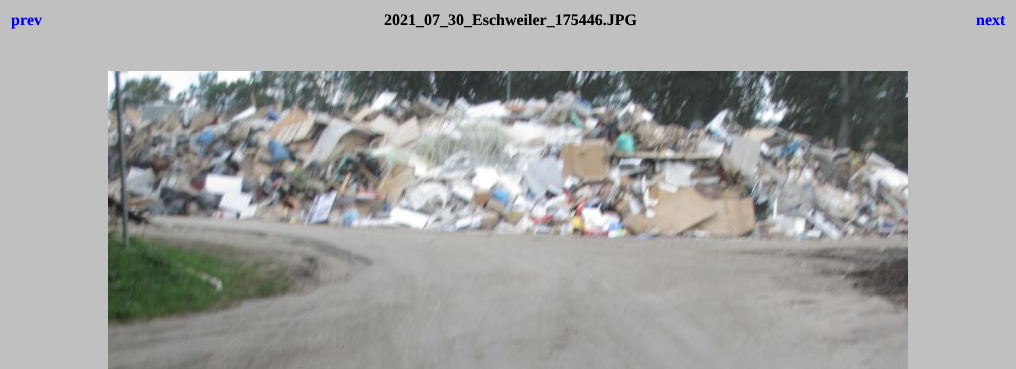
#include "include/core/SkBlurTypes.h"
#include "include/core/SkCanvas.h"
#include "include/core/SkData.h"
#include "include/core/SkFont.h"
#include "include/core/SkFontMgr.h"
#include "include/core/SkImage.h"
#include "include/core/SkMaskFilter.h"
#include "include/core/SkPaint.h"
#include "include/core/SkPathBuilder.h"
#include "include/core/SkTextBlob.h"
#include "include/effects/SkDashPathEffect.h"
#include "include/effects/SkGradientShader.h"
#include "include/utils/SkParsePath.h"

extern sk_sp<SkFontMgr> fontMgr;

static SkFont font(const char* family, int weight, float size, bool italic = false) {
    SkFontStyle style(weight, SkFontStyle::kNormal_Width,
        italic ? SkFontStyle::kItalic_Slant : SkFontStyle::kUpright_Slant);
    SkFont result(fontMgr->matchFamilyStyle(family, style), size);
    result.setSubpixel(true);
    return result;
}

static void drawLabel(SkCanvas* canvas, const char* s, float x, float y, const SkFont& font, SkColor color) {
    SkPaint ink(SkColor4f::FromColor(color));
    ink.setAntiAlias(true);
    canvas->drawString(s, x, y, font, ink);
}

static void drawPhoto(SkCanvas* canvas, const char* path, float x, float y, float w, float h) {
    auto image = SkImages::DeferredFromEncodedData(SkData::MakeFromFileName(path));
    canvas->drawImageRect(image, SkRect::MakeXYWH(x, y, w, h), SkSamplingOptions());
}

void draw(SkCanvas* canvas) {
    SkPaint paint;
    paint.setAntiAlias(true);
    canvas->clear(0xFFC0C0C0);
    SkFont font1 = font("Liberation Serif", 700, 16);
    drawLabel(canvas, "prev", 11, 25, font1, 0xFF0000EE);
    drawLabel(canvas, "2021_07_30_Eschweiler_175446.JPG", 384, 25, font1, 0xFF000000);
    drawLabel(canvas, "next", 976, 25, font1, 0xFF0000EE);
    drawPhoto(canvas, "assets/img1.png", 108, 71, 800, 298);
}
